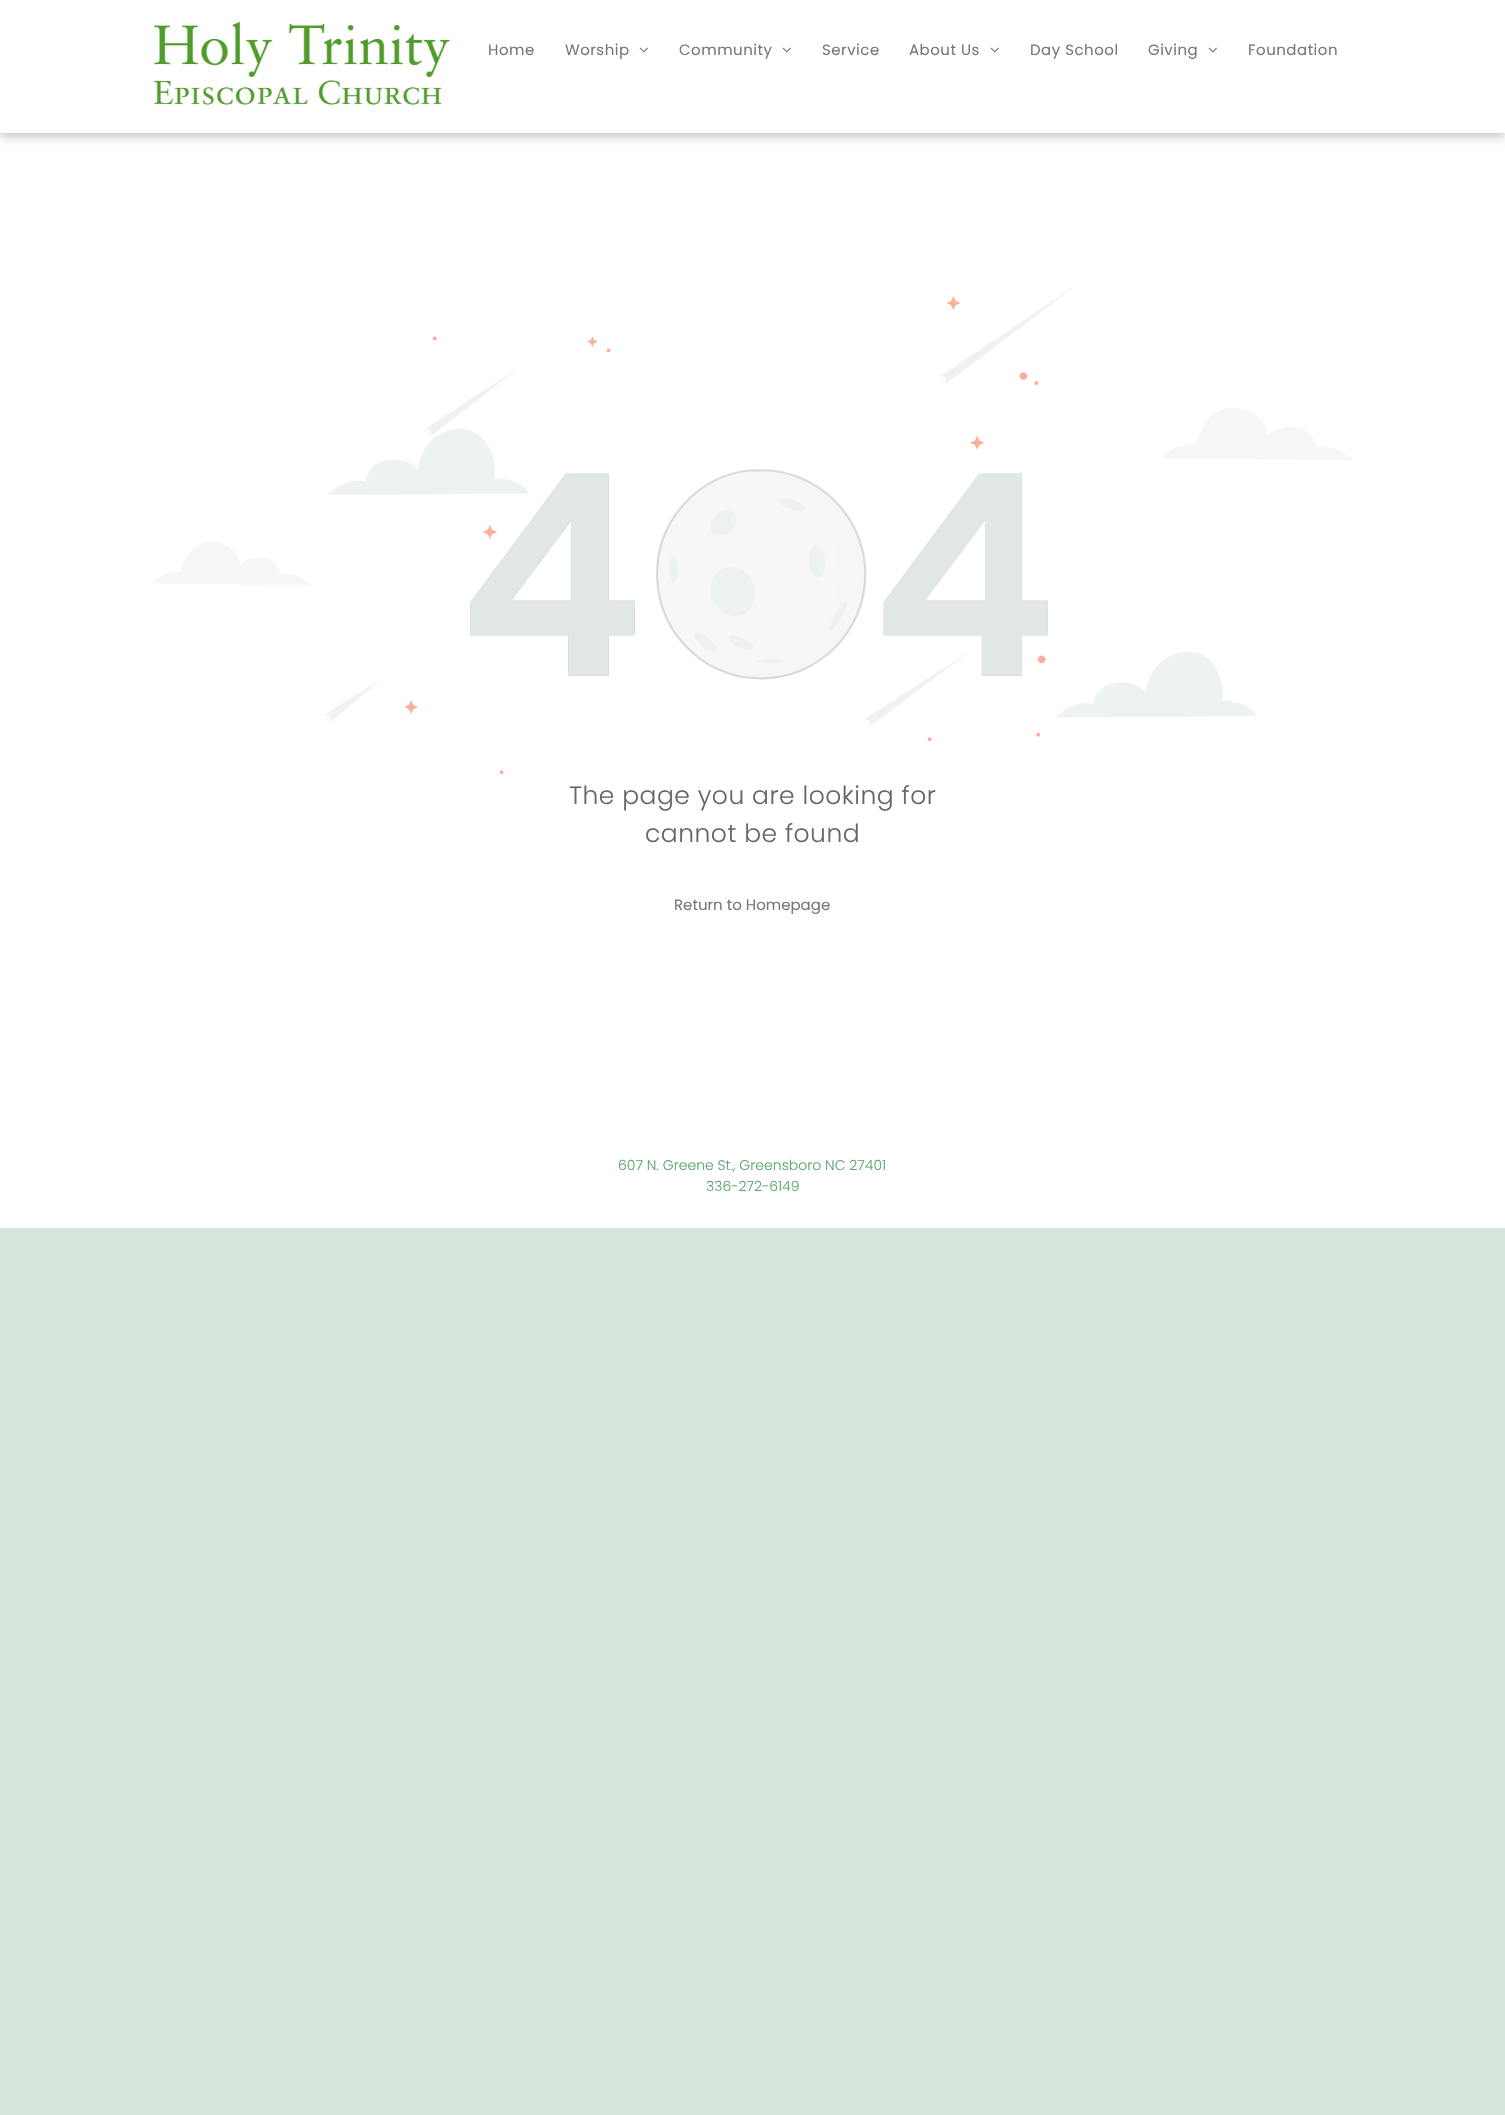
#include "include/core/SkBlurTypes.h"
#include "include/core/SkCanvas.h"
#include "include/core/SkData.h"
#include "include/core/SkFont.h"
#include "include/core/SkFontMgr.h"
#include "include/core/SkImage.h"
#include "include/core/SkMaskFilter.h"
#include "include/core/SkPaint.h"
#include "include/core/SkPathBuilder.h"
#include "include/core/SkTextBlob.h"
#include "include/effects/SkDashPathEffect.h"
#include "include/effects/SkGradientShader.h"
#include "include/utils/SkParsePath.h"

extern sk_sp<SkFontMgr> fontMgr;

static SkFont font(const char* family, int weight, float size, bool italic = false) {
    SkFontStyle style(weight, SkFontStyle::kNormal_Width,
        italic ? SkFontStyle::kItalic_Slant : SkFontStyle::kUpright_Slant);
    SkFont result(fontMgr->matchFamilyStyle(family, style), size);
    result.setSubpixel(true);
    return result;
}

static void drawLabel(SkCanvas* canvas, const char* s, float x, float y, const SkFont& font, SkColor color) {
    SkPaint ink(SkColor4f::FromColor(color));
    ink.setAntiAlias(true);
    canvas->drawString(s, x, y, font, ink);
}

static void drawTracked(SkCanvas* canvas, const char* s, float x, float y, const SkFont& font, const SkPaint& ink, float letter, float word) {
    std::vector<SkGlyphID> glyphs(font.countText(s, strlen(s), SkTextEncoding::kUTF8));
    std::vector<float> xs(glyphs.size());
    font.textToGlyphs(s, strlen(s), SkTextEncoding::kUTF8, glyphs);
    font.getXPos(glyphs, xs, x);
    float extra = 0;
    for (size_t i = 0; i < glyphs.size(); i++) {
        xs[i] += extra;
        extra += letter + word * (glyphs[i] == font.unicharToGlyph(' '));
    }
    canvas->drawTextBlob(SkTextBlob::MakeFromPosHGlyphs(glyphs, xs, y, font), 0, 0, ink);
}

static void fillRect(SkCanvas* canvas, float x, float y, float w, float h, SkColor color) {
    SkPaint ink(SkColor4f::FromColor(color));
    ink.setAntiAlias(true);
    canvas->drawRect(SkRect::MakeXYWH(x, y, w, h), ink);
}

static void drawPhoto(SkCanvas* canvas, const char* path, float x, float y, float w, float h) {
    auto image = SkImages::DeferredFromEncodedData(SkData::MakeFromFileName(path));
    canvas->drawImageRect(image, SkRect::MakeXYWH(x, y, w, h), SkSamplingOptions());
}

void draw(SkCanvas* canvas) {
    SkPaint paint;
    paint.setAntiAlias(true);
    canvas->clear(0xFFD8E5DA);
    fillRect(canvas, 0, 133, 1505, 1095, 0xFFFFFFFF);
    paint.setColor(0x40000000);
    paint.setMaskFilter(SkMaskFilter::MakeBlur(kNormal_SkBlurStyle, 5.5f));
    canvas->drawRect(SkRect::MakeXYWH(0, 3, 1505, 133), paint);
    paint.setMaskFilter(nullptr);
    fillRect(canvas, 0, 0, 1505, 133, 0xFFFFFFFF);
    drawPhoto(canvas, "assets/img1.png", 153, 21, 298, 85);
    SkFont font1 = font("Poppins", 400, 15);
    paint.setColor(0xFF777777);
    drawTracked(canvas, "Home", 488, 55, font1, paint, 0.5f, 0);
    drawTracked(canvas, "Worship", 565, 55, font1, paint, 0.5f, 0);
    drawPhoto(canvas, "assets/img2.png", 639, 47, 9, 6);
    drawTracked(canvas, "Community", 679, 55, font1, paint, 0.5f, 0);
    drawPhoto(canvas, "assets/img2.png", 782, 47, 9, 6);
    drawTracked(canvas, "Service", 822, 55, font1, paint, 0.5f, 0);
    drawTracked(canvas, "About Us", 909, 55, font1, paint, 0.5f, 0);
    drawPhoto(canvas, "assets/img2.png", 990, 47, 9, 6);
    drawTracked(canvas, "Day School", 1030, 55, font1, paint, 0.5f, 0);
    drawTracked(canvas, "Giving", 1148, 55, font1, paint, 0.5f, 0);
    drawPhoto(canvas, "assets/img2.png", 1208, 47, 9, 6);
    drawTracked(canvas, "Foundation", 1248, 55, font1, paint, 0.5f, 0);
    drawPhoto(canvas, "assets/img3.png", 153, 285, 1200, 490);
    SkFont font2 = font("Poppins", 300, 25);
    paint.setColor(0xFF666666);
    drawTracked(canvas, "The page you are looking for", 569, 804, font2, paint, 0.5f, 0);
    drawTracked(canvas, "cannot be found", 645, 842, font2, paint, 0.5f, 0);
    drawLabel(canvas, "Return to Homepage", 674, 910, font1, 0xFF777777);
    SkFont font3 = font("Poppins", 300, 14);
    drawLabel(canvas, "607 N. Greene St., Greensboro NC 27401", 618, 1170, font3, 0xFF5AA470);
    drawLabel(canvas, "336-272-6149", 706, 1191, font3, 0xFF5AA470);
}
